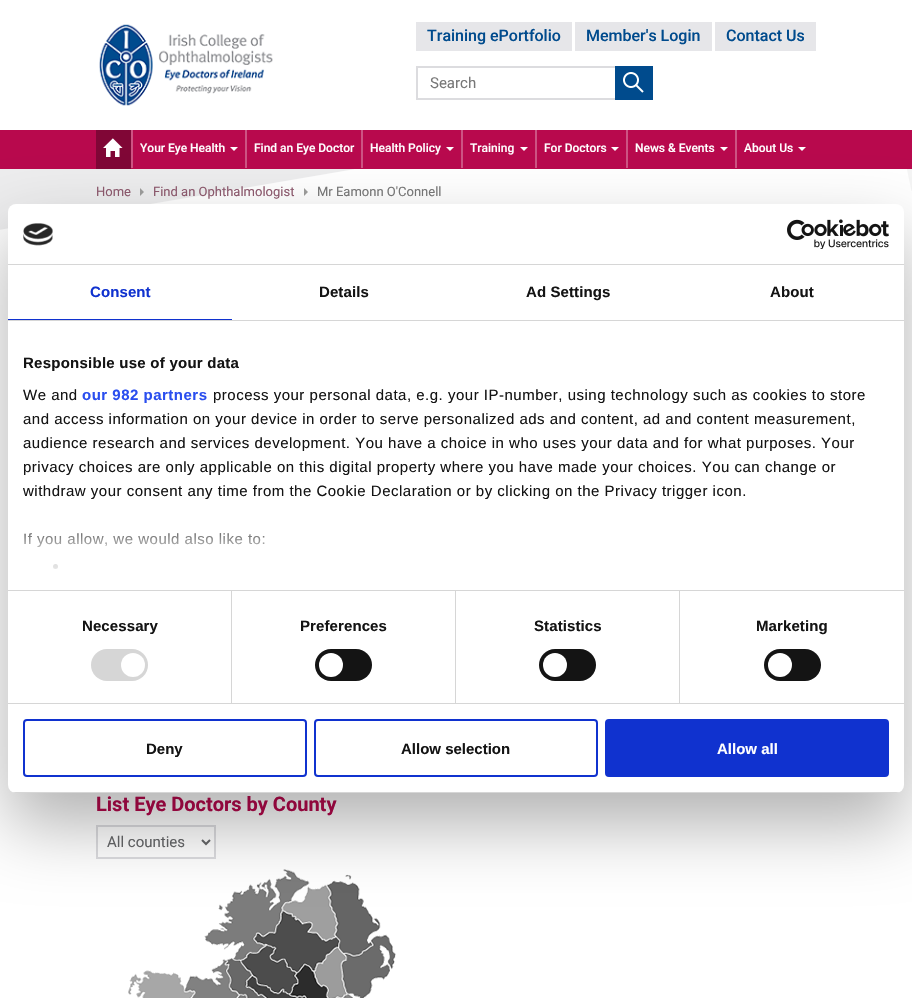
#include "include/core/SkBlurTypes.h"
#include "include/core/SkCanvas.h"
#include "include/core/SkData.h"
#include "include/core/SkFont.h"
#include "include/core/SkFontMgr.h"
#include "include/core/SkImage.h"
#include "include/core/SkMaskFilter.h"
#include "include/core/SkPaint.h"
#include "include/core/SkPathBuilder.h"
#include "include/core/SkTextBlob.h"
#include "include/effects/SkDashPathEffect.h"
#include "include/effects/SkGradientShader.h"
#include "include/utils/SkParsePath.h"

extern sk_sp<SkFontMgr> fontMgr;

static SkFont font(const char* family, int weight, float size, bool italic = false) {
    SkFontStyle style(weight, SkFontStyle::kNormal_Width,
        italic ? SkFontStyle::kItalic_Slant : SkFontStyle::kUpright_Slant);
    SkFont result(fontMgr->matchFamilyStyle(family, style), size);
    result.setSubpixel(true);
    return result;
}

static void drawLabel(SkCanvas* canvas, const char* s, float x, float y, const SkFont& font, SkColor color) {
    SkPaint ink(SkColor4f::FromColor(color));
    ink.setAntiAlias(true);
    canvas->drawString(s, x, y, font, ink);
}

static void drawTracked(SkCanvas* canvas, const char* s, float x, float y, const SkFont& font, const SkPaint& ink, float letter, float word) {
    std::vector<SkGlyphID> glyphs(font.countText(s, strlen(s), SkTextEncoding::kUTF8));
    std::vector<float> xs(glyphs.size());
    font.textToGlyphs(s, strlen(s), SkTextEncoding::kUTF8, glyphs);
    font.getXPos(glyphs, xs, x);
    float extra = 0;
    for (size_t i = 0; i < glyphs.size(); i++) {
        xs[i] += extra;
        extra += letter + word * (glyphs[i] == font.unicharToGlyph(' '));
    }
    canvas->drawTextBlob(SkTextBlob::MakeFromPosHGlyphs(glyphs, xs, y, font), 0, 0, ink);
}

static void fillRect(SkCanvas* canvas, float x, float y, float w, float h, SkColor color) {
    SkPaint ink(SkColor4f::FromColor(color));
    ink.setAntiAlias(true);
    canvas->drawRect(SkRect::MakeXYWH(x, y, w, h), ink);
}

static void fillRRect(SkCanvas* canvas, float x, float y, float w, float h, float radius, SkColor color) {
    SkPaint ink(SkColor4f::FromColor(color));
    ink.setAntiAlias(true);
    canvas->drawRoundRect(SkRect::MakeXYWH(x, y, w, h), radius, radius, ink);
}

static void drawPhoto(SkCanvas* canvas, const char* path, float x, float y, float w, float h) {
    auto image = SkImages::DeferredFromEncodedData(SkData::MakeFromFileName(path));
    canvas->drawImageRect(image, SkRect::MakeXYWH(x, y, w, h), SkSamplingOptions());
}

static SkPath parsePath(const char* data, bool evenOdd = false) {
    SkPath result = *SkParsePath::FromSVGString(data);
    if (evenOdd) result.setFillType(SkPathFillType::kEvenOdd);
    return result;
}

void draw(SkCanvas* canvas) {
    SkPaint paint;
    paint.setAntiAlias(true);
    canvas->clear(0xFFFFFFFF);
    drawPhoto(canvas, "assets/img1.png", 99, 24, 174, 82);
    fillRect(canvas, 0, 130, 912, 39, 0xFFB8094D);
    fillRect(canvas, 416, 22, 156, 29, 0xFFE6E6E9);
    SkFont font1 = font("Roboto", 500, 16);
    drawLabel(canvas, "Training ePortfolio", 427, 41, font1, 0xFF004B8D);
    fillRect(canvas, 575, 22, 137, 29, 0xFFE6E6E9);
    drawLabel(canvas, "Member's Login", 586, 41, font1, 0xFF004B8D);
    fillRect(canvas, 715, 22, 101, 29, 0xFFE6E6E9);
    drawLabel(canvas, "Contact Us", 726, 41, font1, 0xFF004B8D);
    paint.setStroke(true);
    paint.setStrokeWidth(2);
    paint.setColor(0xFFDCDCDF);
    canvas->drawRect(SkRect::MakeXYWH(417, 67, 199, 32), paint);
    SkFont font2 = font("Roboto", 400, 15);
    drawLabel(canvas, "Search", 430, 88, font2, 0xFF777777);
    fillRect(canvas, 615, 66, 38, 34, 0xFF004B8D);
    drawPhoto(canvas, "assets/img2.png", 623, 72, 21, 21);
    fillRect(canvas, 96, 130, 35, 39, 0xFF800636);
    drawPhoto(canvas, "assets/img3.png", 103, 138, 20, 19);
    fillRect(canvas, 131, 130, 2, 38, 0xFFCD5383);
    SkFont font3 = font("Roboto", 500, 12);
    drawLabel(canvas, "Your Eye Health", 140, 152, font3, 0xFFFFFFFF);
    paint.setStroke(false);
    paint.setColor(0xFFFFFFFF);
    canvas->drawPath(parsePath("M230 147H238L234 151Z"), paint);
    fillRect(canvas, 245, 130, 2, 38, 0xFFCD5383);
    drawLabel(canvas, "Find an Eye Doctor", 254, 152, font3, 0xFFFFFFFF);
    fillRect(canvas, 361, 130, 2, 38, 0xFFCD5383);
    drawLabel(canvas, "Health Policy", 370, 152, font3, 0xFFFFFFFF);
    canvas->drawPath(parsePath("M446 147H454L450 151Z"), paint);
    fillRect(canvas, 461, 130, 2, 38, 0xFFCD5383);
    drawLabel(canvas, "Training", 470, 152, font3, 0xFFFFFFFF);
    canvas->drawPath(parsePath("M520 147H528L524 151Z"), paint);
    fillRect(canvas, 535, 130, 2, 38, 0xFFCD5383);
    drawLabel(canvas, "For Doctors", 544, 152, font3, 0xFFFFFFFF);
    canvas->drawPath(parsePath("M611 147H619L615 151Z"), paint);
    fillRect(canvas, 626, 130, 2, 38, 0xFFCD5383);
    drawLabel(canvas, "News & Events", 635, 152, font3, 0xFFFFFFFF);
    canvas->drawPath(parsePath("M720 147H728L724 151Z"), paint);
    fillRect(canvas, 735, 130, 2, 38, 0xFFCD5383);
    drawLabel(canvas, "About Us", 744, 152, font3, 0xFFFFFFFF);
    canvas->drawPath(parsePath("M798 147H806L802 151Z"), paint);
    drawPhoto(canvas, "assets/img4.png", 0, 169, 354, 61);
    drawPhoto(canvas, "assets/img5.png", 907, 169, 5, 22);
    SkFont font4 = font("Roboto", 400, 13);
    drawLabel(canvas, "Home", 96, 196, font4, 0xFF8E5A6E);
    paint.setColor(0xFF9D9D9C);
    canvas->drawPath(parsePath("M140 196V188L144 192Z"), paint);
    drawLabel(canvas, "Find an Ophthalmologist", 153, 196, font4, 0xFF8E5A6E);
    canvas->drawPath(parsePath("M304 196V188L308 192Z"), paint);
    drawLabel(canvas, "Mr Eamonn O'Connell", 317, 196, font4, 0xFF777777);
    SkFont font5 = font("Roboto", 700, 20);
    drawLabel(canvas, "List Eye Doctors by County", 96, 811, font5, 0xFFB8094D);
    paint.setStroke(true);
    paint.setColor(0xFFDCDCDF);
    canvas->drawRect(SkRect::MakeXYWH(97, 826, 118, 32), paint);
    paint.setColor(0xFF666769);
    canvas->drawPath(parsePath("M202 840L206 844L210 840"), paint);
    drawLabel(canvas, "All counties", 107, 847, font2, 0xFF666769);
    drawPhoto(canvas, "assets/img6.png", 128, 869, 268, 129);
    paint.setStroke(false);
    paint.setColor(0x4D000000);
    paint.setMaskFilter(SkMaskFilter::MakeBlur(kNormal_SkBlurStyle, 34));
    canvas->drawRoundRect(SkRect::MakeXYWH(8, 236, 896, 589), 8, 8, paint);
    paint.setMaskFilter(nullptr);
    fillRRect(canvas, 8, 204, 896, 589, 8, 0xFFFFFFFF);
    fillRect(canvas, 8, 264, 896, 1, 0xFFD6D6D6);
    drawPhoto(canvas, "assets/img7.png", 23, 223, 30, 23);
    drawPhoto(canvas, "assets/img8.png", 787, 219, 102, 30);
    fillRect(canvas, 8, 320, 896, 1, 0xFFD6D6D6);
    fillRect(canvas, 8, 319, 224, 1, 0xFF1032CF);
    SkFont font6 = font("Liberation Sans", 700, 15);
    paint.setColor(0xFF1032CF);
    drawTracked(canvas, "Consent", 90, 297, font6, paint, 0.1f, 0);
    paint.setColor(0xFF141414);
    drawTracked(canvas, "Details", 319, 297, font6, paint, 0.1f, 0);
    drawTracked(canvas, "Ad Settings", 526, 297, font6, paint, 0.1f, 0);
    drawTracked(canvas, "About", 770, 297, font6, paint, 0.1f, 0);
    fillRect(canvas, 8, 590, 896, 1, 0xFFD6D6D6);
    drawTracked(canvas, "Responsible use of your data", 23, 368, font6, paint, 0.25f, 0);
    SkFont font7 = font("Liberation Sans", 400, 15);
    drawTracked(canvas, "We and", 23, 400, font7, paint, 0.5f, 0);
    paint.setColor(0xFF2A4EEF);
    drawTracked(canvas, "our 982 partners", 82, 400, font6, paint, 0.5f, 0);
    paint.setColor(0xFF141414);
    drawTracked(canvas, "process your personal data, e.g. your IP-number, using technology such as cookies to store", 213, 400, font7, paint, 0.5f, 0);
    drawTracked(canvas, "and access information on your device in order to serve personalized ads and content, ad and content measurement,", 23, 424, font7, paint, 0.5f, 0);
    drawTracked(canvas, "audience research and services development. You have a choice in who uses your data and for what purposes. Your", 23, 448, font7, paint, 0.5f, 0);
    drawTracked(canvas, "privacy choices are only applicable on this digital property where you have made your choices. You can change or", 23, 472, font7, paint, 0.5f, 0);
    drawTracked(canvas, "withdraw your consent any time from the Cookie Declaration or by clicking on the Privacy trigger icon.", 23, 496, font7, paint, 0.5f, 0);
    drawTracked(canvas, "If you allow, we would also like to:", 23, 544, font7, paint, 0.5f, 0);
    canvas->drawCircle(55.5f, 566.5f, 2.5f, paint);
    {
        const SkColor colors[] = {0xFFFFFFFF, 0xCCFFFFFF, 0x00FFFFFF};
        const float stops[] = {0, 0.5f, 1};
        const SkPoint ends[] = {{450, 590}, {450, 515}};
        paint.setShader(SkGradientShader::MakeLinear(ends, colors, stops, 3, SkTileMode::kClamp));
        paint.setAlpha(255);
    }
    canvas->drawRect(SkRect::MakeXYWH(24, 533, 241, 36), paint);
    fillRect(canvas, 8, 703, 896, 1, 0xFFD6D6D6);
    fillRect(canvas, 231, 591, 1, 112, 0xFFD6D6D6);
    paint.setShader(nullptr);
    paint.setColor(0xFF141414);
    drawTracked(canvas, "Necessary", 82, 631, font6, paint, 0.1f, 0);
    fillRRect(canvas, 91, 649, 57, 32, 16, 0xFFD6D6D6);
    paint.setColor(0xFFFFFFFF);
    canvas->drawCircle(133, 665, 12, paint);
    fillRect(canvas, 455, 591, 1, 112, 0xFFD6D6D6);
    paint.setColor(0xFF141414);
    drawTracked(canvas, "Preferences", 300, 631, font6, paint, 0.1f, 0);
    fillRRect(canvas, 315, 649, 57, 32, 16, 0xFF141414);
    paint.setColor(0xFFFFFFFF);
    canvas->drawCircle(331, 665, 12, paint);
    fillRect(canvas, 679, 591, 1, 112, 0xFFD6D6D6);
    paint.setColor(0xFF141414);
    drawTracked(canvas, "Statistics", 534, 631, font6, paint, 0.1f, 0);
    fillRRect(canvas, 539, 649, 57, 32, 16, 0xFF141414);
    paint.setColor(0xFFFFFFFF);
    canvas->drawCircle(555, 665, 12, paint);
    paint.setColor(0xFF141414);
    drawTracked(canvas, "Marketing", 756, 631, font6, paint, 0.1f, 0);
    fillRRect(canvas, 764, 649, 57, 32, 16, 0xFF141414);
    paint.setColor(0xFFFFFFFF);
    canvas->drawCircle(780, 665, 12, paint);
    canvas->save();
    canvas->clipPath(parsePath("M16 204H896C900.5 204 904 207.5 904 212V785C904 789.5 900.5 793 896 793H16C11.5 793 8 789.5 8 785V212C8 207.5 11.5 204 16 204Z"), true);
    fillRect(canvas, 8, 792, 896, 1, 0xFFD6D6D6);
    canvas->restore();
    paint.setStroke(true);
    paint.setColor(0xFF1032CF);
    canvas->drawRoundRect(SkRect::MakeXYWH(24, 720, 282, 56), 3, 3, paint);
    drawLabel(canvas, "Deny", 146, 754, font6, 0xFF141414);
    canvas->drawRoundRect(SkRect::MakeXYWH(315, 720, 282, 56), 3, 3, paint);
    drawLabel(canvas, "Allow selection", 401, 754, font6, 0xFF141414);
    paint.setStroke(false);
    canvas->drawRoundRect(SkRect::MakeXYWH(606, 720, 282, 56), 3, 3, paint);
    paint.setStroke(true);
    canvas->drawRoundRect(SkRect::MakeXYWH(606, 720, 282, 56), 3, 3, paint);
    drawLabel(canvas, "Allow all", 717, 754, font6, 0xFFFFFFFF);
}
